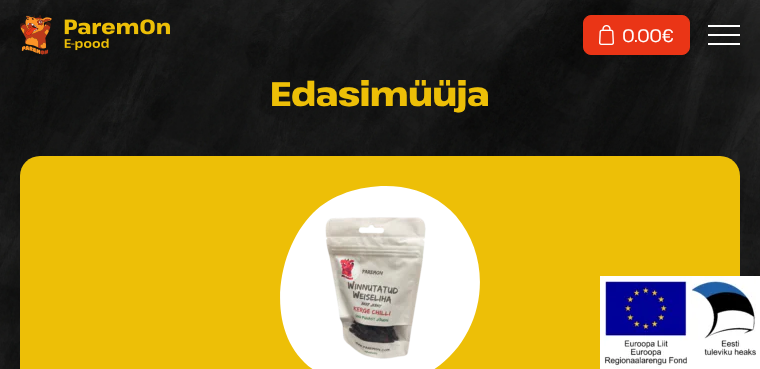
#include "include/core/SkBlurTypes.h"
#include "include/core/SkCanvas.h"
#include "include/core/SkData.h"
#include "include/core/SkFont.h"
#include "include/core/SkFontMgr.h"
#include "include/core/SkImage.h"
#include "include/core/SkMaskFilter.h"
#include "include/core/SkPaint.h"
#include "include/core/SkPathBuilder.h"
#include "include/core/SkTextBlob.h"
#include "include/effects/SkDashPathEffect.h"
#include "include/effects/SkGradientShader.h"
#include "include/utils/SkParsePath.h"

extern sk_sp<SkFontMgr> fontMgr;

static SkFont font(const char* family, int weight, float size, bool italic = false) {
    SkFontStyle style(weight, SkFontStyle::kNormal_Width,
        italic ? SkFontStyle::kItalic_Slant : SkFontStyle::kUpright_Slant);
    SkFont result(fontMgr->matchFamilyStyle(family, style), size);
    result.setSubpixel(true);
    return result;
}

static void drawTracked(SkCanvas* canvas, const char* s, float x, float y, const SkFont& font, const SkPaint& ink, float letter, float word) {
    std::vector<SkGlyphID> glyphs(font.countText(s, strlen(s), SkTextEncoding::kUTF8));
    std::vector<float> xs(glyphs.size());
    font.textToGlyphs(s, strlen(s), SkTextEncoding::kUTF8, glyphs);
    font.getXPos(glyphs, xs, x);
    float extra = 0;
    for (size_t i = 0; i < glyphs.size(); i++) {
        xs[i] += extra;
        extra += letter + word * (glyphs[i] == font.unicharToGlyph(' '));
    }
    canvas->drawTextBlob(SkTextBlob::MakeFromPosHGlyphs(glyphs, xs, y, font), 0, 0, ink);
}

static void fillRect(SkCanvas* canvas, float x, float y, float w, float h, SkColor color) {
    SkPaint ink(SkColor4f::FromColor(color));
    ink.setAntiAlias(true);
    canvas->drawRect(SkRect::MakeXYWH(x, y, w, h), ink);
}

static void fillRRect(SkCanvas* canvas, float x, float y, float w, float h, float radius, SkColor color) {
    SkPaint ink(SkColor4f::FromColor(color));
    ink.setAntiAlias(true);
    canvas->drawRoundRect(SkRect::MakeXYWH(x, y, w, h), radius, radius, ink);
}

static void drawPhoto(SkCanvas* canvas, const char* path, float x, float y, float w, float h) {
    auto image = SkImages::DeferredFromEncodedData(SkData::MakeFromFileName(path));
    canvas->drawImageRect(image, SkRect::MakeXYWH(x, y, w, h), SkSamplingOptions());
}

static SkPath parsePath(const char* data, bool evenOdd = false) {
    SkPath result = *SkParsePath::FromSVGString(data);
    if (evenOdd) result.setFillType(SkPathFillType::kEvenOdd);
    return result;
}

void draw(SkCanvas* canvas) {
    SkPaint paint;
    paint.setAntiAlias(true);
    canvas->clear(0xFFFFFFFF);
    drawPhoto(canvas, "assets/img1.png", 0, 0, 760, 369);
    drawPhoto(canvas, "assets/img2.png", 20, 15, 150, 40);
    paint.setColor(0xFFEA3516);
    canvas->drawRoundRect(SkRect::MakeXYWH(583.5f, 15.5f, 106, 39), 7.5f, 7.5f, paint);
    paint.setStroke(true);
    paint.setStrokeWidth(1);
    canvas->drawRoundRect(SkRect::MakeXYWH(583.5f, 15.5f, 106, 39), 7.5f, 7.5f, paint);
    drawPhoto(canvas, "assets/img3.png", 599, 25, 15, 20);
    SkFont font1 = font("Pathway Extreme", 400, 18);
    paint.setStroke(false);
    paint.setColor(0xFFFFFFFF);
    drawTracked(canvas, "0.00€", 622, 42, font1, paint, -0.5f, 0);
    fillRect(canvas, 708, 25, 32, 2, 0xFFFFFFFF);
    fillRect(canvas, 708, 34, 32, 2, 0xFFFFFFFF);
    fillRect(canvas, 708, 43, 32, 2, 0xFFFFFFFF);
    SkFont font2 = font("Pathway Extreme", 800, 34);
    paint.setColor(0xFFEDBF07);
    drawTracked(canvas, "Edasimüüja", 270, 106, font2, paint, -0.75f, 0);
    fillRRect(canvas, 20, 156, 720, 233, 20, 0xFFEDBF07);
    paint.setColor(0xFFFFFFFF);
    canvas->drawPath(parsePath("M368 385C350 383 332 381 317 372C263 339 274 252 313 213C335 191 371 183 401 187C422 190 442 200 456 216C500 268 481 351 418 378C402 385 385 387 368 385Z"), paint);
    drawPhoto(canvas, "assets/img4.png", 325, 217, 101, 142);
    drawPhoto(canvas, "assets/img5.png", 600, 276, 160, 93);
}
